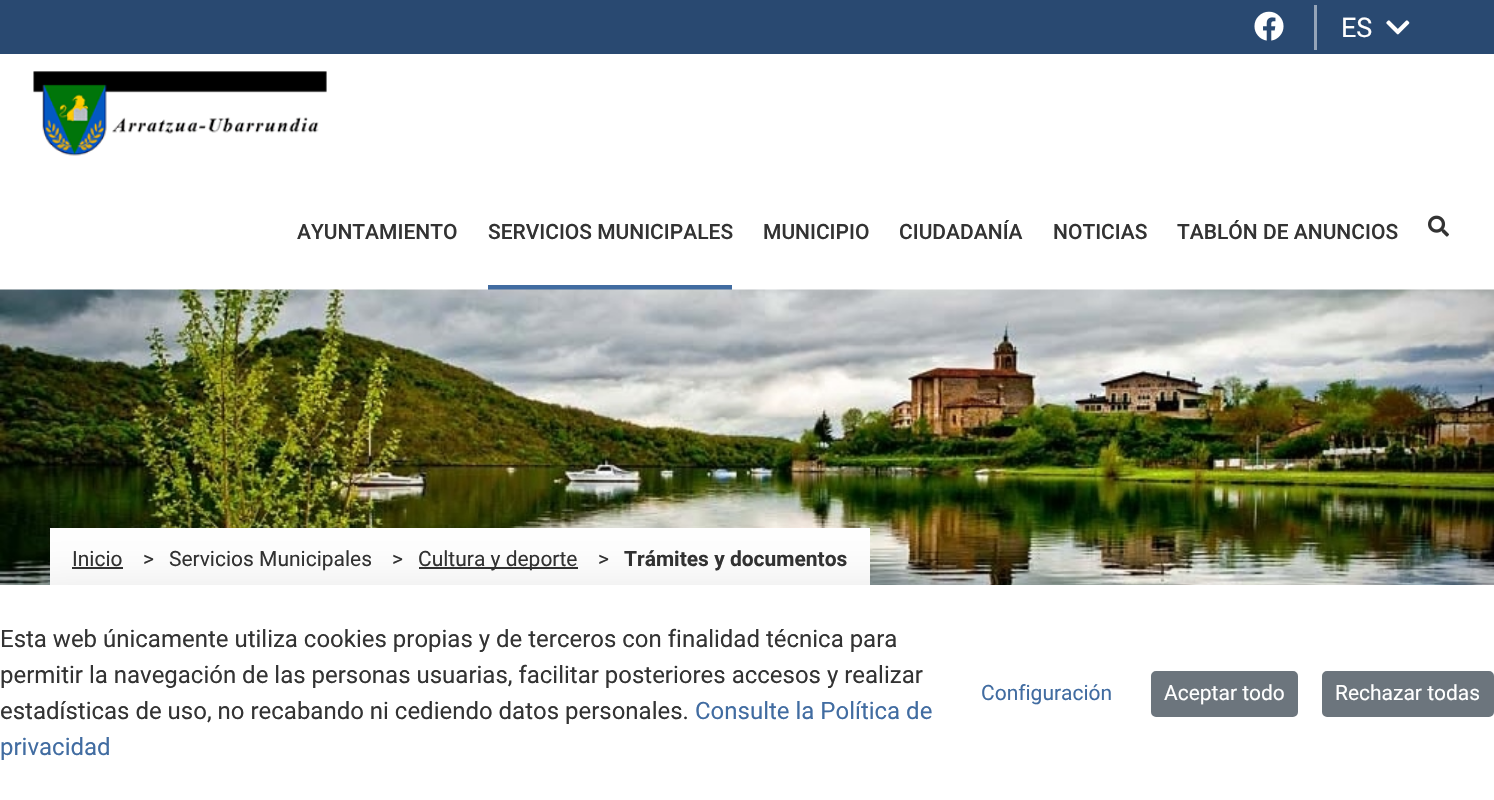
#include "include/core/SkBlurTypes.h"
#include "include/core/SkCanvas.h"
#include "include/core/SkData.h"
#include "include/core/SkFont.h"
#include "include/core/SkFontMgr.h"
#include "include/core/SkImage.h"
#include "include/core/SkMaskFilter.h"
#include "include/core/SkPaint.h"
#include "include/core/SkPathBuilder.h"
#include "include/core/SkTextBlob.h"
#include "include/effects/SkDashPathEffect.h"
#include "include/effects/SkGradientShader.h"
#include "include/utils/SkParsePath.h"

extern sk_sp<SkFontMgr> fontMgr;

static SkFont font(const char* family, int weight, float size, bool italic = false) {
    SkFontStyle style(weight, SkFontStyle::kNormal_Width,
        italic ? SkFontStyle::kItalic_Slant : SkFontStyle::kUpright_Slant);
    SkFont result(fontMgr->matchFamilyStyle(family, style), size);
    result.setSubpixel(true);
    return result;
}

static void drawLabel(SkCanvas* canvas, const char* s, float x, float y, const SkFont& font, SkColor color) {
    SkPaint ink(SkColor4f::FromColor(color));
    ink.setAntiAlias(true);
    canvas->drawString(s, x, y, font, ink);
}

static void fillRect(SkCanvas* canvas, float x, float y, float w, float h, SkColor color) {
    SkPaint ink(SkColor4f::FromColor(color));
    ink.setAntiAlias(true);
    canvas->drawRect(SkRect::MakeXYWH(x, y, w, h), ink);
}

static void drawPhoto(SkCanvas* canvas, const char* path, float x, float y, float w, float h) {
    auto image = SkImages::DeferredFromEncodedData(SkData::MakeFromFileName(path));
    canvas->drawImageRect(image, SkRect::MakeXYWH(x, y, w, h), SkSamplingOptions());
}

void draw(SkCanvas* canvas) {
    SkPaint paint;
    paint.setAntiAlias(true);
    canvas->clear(0xFFFFFFFF);
    fillRect(canvas, 0, 0, 1494, 54, 0xFF294971);
    fillRect(canvas, 1314, 5, 3, 45, 0xFF94A4B8);
    drawPhoto(canvas, "assets/img1.png", 1254, 11, 30, 30);
    SkFont font1 = font("Roboto", 400, 27);
    drawLabel(canvas, "ES", 1341, 37, font1, 0xFFFFFFFF);
    drawPhoto(canvas, "assets/img2.png", 1386, 20, 24, 15);
    drawPhoto(canvas, "assets/img3.png", 33, 71, 294, 85);
    SkFont font2 = font("Roboto", 500, 21);
    drawLabel(canvas, "AYUNTAMIENTO", 297, 239, font2, 0xFF333333);
    fillRect(canvas, 488, 285, 244, 5, 0xFF416CA1);
    drawLabel(canvas, "SERVICIOS MUNICIPALES", 488, 239, font2, 0xFF333333);
    drawLabel(canvas, "MUNICIPIO", 763, 239, font2, 0xFF333333);
    drawLabel(canvas, "CIUDADANÍA", 899, 239, font2, 0xFF333333);
    drawLabel(canvas, "NOTICIAS", 1053, 239, font2, 0xFF333333);
    drawLabel(canvas, "TABLÓN DE ANUNCIOS", 1177, 239, font2, 0xFF333333);
    drawPhoto(canvas, "assets/img4.png", 1428, 215, 21, 22);
    drawPhoto(canvas, "assets/img5.png", 0, 289, 1494, 296);
    fillRect(canvas, 50, 528, 820, 57, 0xFFFFFFFF);
    SkFont font3 = font("Roboto", 400, 21);
    drawLabel(canvas, "Inicio", 72, 566, font3, 0xFF333333);
    fillRect(canvas, 72, 567, 51, 2, 0xFF333333);
    drawLabel(canvas, ">", 143, 566, font3, 0xFF333333);
    drawLabel(canvas, "Servicios Municipales", 169, 566, font3, 0xFF333333);
    drawLabel(canvas, ">", 392, 566, font3, 0xFF333333);
    fillRect(canvas, 419, 567, 159, 2, 0xFF333333);
    drawLabel(canvas, "Cultura y deporte", 418, 566, font3, 0xFF333333);
    drawLabel(canvas, ">", 598, 566, font3, 0xFF333333);
    SkFont font4 = font("Roboto", 700, 21);
    drawLabel(canvas, "Trámites y documentos", 624, 566, font4, 0xFF333333);
    paint.setColor(0x2E000000);
    paint.setMaskFilter(SkMaskFilter::MakeBlur(kNormal_SkBlurStyle, 36));
    canvas->drawRect(SkRect::MakeXYWH(0, 609, 1494, 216), paint);
    paint.setMaskFilter(nullptr);
    fillRect(canvas, 0, 585, 1494, 215, 0xFFFFFFFF);
    SkFont font5 = font("Roboto", 400, 24);
    drawLabel(canvas, "Esta web únicamente utiliza cookies propias y de terceros con finalidad técnica para", 0, 647, font5, 0xFF333333);
    drawLabel(canvas, "permitir la navegación de las personas usuarias, facilitar posteriores accesos y realizar", 0, 683, font5, 0xFF333333);
    drawLabel(canvas, "estadísticas de uso, no recabando ni cediendo datos personales.", 0, 719, font5, 0xFF333333);
    drawLabel(canvas, "Consulte la Política de", 695, 719, font5, 0xFF416CA1);
    drawLabel(canvas, "privacidad", 0, 755, font5, 0xFF416CA1);
    drawLabel(canvas, "Configuración", 981, 700, font3, 0xFF416CA1);
    paint.setColor(0xFF6C757D);
    canvas->drawRoundRect(SkRect::MakeXYWH(1152, 672, 145, 44), 4, 4, paint);
    paint.setStroke(true);
    paint.setStrokeWidth(2);
    canvas->drawRoundRect(SkRect::MakeXYWH(1152, 672, 145, 44), 4, 4, paint);
    drawLabel(canvas, "Aceptar todo", 1164, 700, font3, 0xFFFFFFFF);
    paint.setStroke(false);
    canvas->drawRoundRect(SkRect::MakeXYWH(1323, 672, 170, 44), 4, 4, paint);
    paint.setStroke(true);
    canvas->drawRoundRect(SkRect::MakeXYWH(1323, 672, 170, 44), 4, 4, paint);
    drawLabel(canvas, "Rechazar todas", 1335, 700, font3, 0xFFFFFFFF);
}
